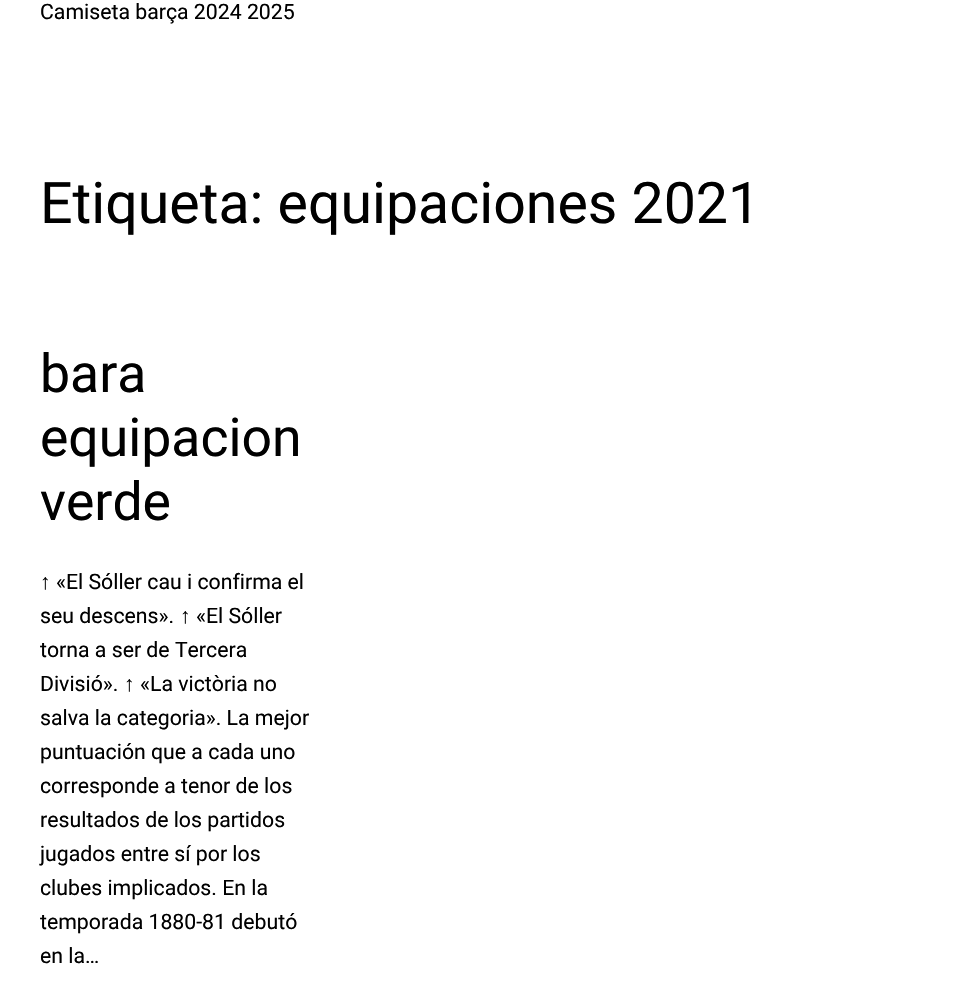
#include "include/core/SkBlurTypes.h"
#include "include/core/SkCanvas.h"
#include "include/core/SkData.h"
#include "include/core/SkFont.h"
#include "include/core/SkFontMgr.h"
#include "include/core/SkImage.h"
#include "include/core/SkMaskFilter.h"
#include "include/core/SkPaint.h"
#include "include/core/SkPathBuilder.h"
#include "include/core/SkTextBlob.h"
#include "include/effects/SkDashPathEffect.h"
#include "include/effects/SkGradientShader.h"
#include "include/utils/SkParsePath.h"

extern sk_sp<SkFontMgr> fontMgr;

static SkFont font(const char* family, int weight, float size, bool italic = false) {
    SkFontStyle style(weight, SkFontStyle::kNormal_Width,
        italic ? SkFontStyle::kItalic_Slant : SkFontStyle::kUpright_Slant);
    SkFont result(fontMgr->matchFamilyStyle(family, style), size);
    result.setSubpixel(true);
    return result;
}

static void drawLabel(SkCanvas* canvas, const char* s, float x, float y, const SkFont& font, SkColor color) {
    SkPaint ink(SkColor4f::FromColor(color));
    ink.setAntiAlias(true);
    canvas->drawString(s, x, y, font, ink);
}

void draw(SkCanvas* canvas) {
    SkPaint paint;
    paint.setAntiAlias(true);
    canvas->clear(0xFFFFFFFF);
    SkFont font1 = font("Roboto", 400, 21.25f);
    drawLabel(canvas, "Camiseta barça 2024 2025", 40, 19, font1, 0xFF000000);
    SkFont font2 = font("Roboto", 400, 57.25f);
    drawLabel(canvas, "Etiqueta: equipaciones 2021", 40, 223, font2, 0xFF000000);
    SkFont font3 = font("Roboto", 400, 53.5f);
    drawLabel(canvas, "bara", 40, 392, font3, 0xFF000000);
    drawLabel(canvas, "equipacion", 40, 456, font3, 0xFF000000);
    drawLabel(canvas, "verde", 40, 520, font3, 0xFF000000);
    SkFont font4 = font("Liberation Sans", 400, 21.25f);
    drawLabel(canvas, "↑", 40, 589, font4, 0xFF000000);
    drawLabel(canvas, "«El Sóller cau i confirma el", 56, 589, font1, 0xFF000000);
    drawLabel(canvas, "seu descens».", 40, 623, font1, 0xFF000000);
    drawLabel(canvas, "↑", 180, 623, font4, 0xFF000000);
    drawLabel(canvas, "«El Sóller", 196, 623, font1, 0xFF000000);
    drawLabel(canvas, "torna a ser de Tercera", 40, 657, font1, 0xFF000000);
    drawLabel(canvas, "Divisió».", 40, 691, font1, 0xFF000000);
    drawLabel(canvas, "↑", 124, 691, font4, 0xFF000000);
    drawLabel(canvas, "«La victòria no", 140, 691, font1, 0xFF000000);
    drawLabel(canvas, "salva la categoria». La mejor", 40, 725, font1, 0xFF000000);
    drawLabel(canvas, "puntuación que a cada uno", 40, 759, font1, 0xFF000000);
    drawLabel(canvas, "corresponde a tenor de los", 40, 793, font1, 0xFF000000);
    drawLabel(canvas, "resultados de los partidos", 40, 827, font1, 0xFF000000);
    drawLabel(canvas, "jugados entre sí por los", 40, 861, font1, 0xFF000000);
    drawLabel(canvas, "clubes implicados. En la", 40, 895, font1, 0xFF000000);
    drawLabel(canvas, "temporada 1880-81 debutó", 40, 929, font1, 0xFF000000);
    drawLabel(canvas, "en la…", 40, 963, font1, 0xFF000000);
}
